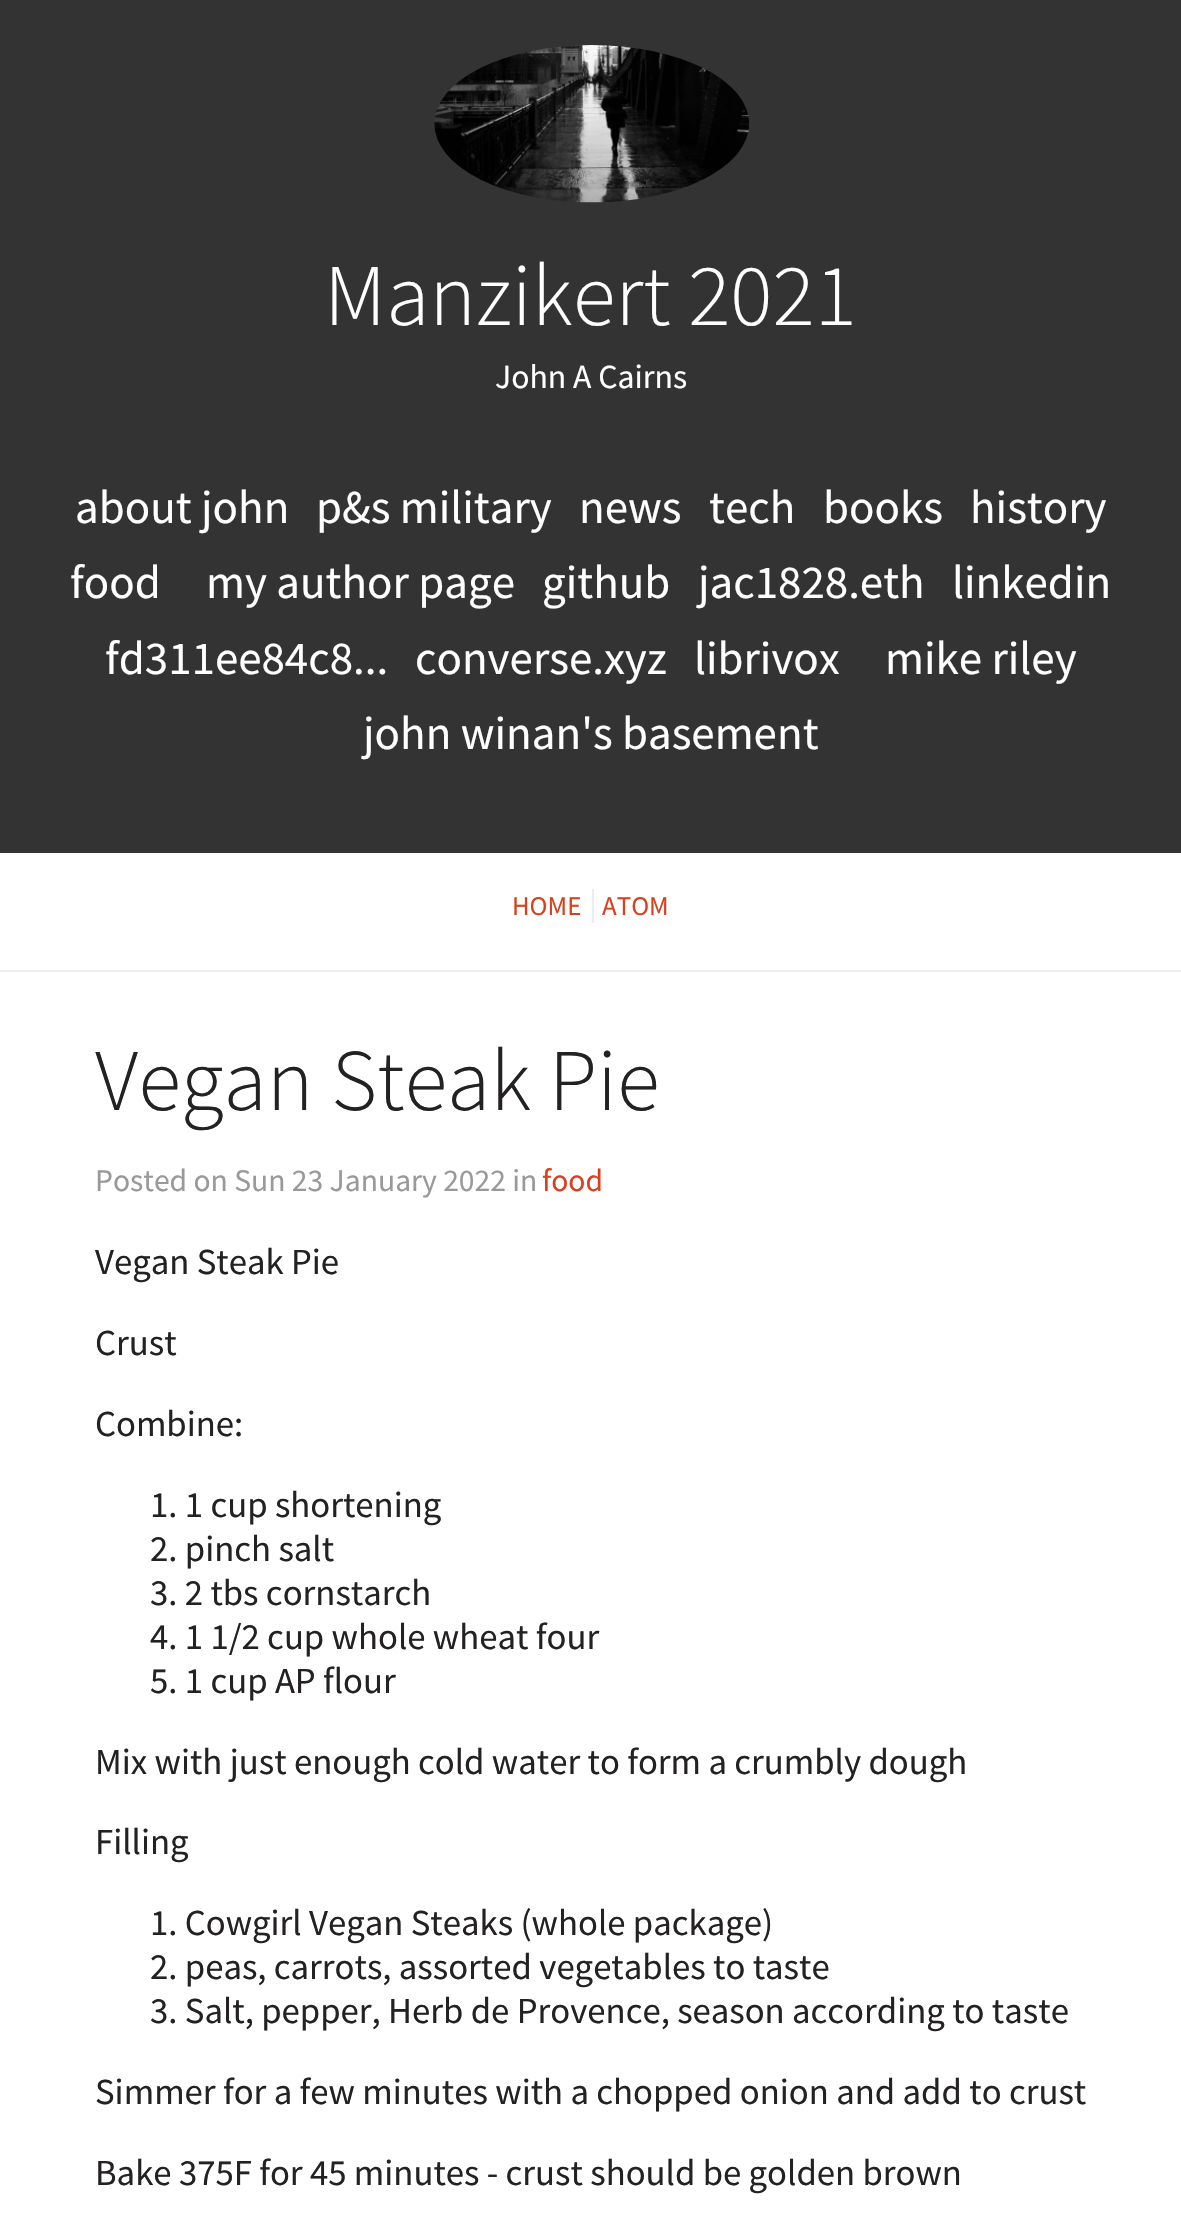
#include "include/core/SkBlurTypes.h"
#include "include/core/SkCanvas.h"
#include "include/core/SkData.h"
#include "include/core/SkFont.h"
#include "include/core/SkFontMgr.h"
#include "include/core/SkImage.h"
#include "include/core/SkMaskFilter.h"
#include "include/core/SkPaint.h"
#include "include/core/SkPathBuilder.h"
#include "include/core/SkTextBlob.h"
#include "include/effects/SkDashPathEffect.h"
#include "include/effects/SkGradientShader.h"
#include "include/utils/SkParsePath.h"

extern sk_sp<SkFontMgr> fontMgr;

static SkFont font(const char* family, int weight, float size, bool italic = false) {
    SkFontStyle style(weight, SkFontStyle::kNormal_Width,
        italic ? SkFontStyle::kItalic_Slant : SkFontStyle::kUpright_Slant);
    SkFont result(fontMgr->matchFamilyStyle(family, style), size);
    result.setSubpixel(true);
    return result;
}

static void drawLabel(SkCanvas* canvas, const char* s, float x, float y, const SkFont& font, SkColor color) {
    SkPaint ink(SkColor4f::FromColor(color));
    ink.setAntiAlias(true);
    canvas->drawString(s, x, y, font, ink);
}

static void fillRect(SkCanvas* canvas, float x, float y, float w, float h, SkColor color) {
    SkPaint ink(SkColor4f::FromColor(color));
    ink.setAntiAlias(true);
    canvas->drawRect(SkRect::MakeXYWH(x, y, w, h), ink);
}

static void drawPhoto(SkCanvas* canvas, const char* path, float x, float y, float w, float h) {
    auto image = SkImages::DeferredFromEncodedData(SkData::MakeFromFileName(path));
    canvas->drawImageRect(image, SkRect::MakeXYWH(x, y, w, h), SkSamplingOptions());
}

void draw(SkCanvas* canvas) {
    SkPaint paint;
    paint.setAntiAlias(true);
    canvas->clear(0xFFFFFFFF);
    fillRect(canvas, 0, 0, 1181, 853, 0xFF333333);
    drawPhoto(canvas, "assets/img1.png", 434, 45, 315, 158);
    SkFont font1 = font("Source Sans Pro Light", 300, 88);
    drawLabel(canvas, "Manzikert 2021", 324, 325, font1, 0xFFFFFFFF);
    SkFont font2 = font("Source Sans Pro", 400, 33.75f);
    drawLabel(canvas, "John A Cairns", 495, 388, font2, 0xFFFFFFFF);
    SkFont font3 = font("Source Sans Pro", 400, 47);
    drawLabel(canvas, "about john", 75, 523, font3, 0xFFFFFFFF);
    drawLabel(canvas, "p&s military", 316, 523, font3, 0xFFFFFFFF);
    drawLabel(canvas, "news", 579, 523, font3, 0xFFFFFFFF);
    drawLabel(canvas, "tech", 709, 523, font3, 0xFFFFFFFF);
    drawLabel(canvas, "books", 823, 523, font3, 0xFFFFFFFF);
    drawLabel(canvas, "history", 970, 523, font3, 0xFFFFFFFF);
    drawLabel(canvas, "food", 70, 598, font3, 0xFFFFFFFF);
    drawLabel(canvas, "my author page", 206, 598, font3, 0xFFFFFFFF);
    drawLabel(canvas, "github", 542, 598, font3, 0xFFFFFFFF);
    drawLabel(canvas, "jac1828.eth", 698, 598, font3, 0xFFFFFFFF);
    drawLabel(canvas, "linkedin", 952, 598, font3, 0xFFFFFFFF);
    drawLabel(canvas, "fd311ee84c8...", 105, 674, font3, 0xFFFFFFFF);
    drawLabel(canvas, "converse.xyz", 415, 674, font3, 0xFFFFFFFF);
    drawLabel(canvas, "librivox", 694, 674, font3, 0xFFFFFFFF);
    drawLabel(canvas, "mike riley", 885, 674, font3, 0xFFFFFFFF);
    drawLabel(canvas, "john winan's basement", 363, 749, font3, 0xFFFFFFFF);
    fillRect(canvas, 0, 970, 1181, 2, 0xFFEEEEEE);
    SkFont font4 = font("Source Sans Pro", 400, 27);
    drawLabel(canvas, "HOME", 512, 915, font4, 0xFFD9411E);
    fillRect(canvas, 592, 889, 2, 34, 0xFFEEEEEE);
    drawLabel(canvas, "ATOM", 602, 915, font4, 0xFFD9411E);
    drawLabel(canvas, "Vegan Steak Pie", 95, 1110, font1, 0xFF242121);
    SkFont font5 = font("Source Sans Pro", 400, 31.6f);
    drawLabel(canvas, "Posted on Sun 23 January 2022 in", 95, 1191, font5, 0xFF999999);
    drawLabel(canvas, "food", 542, 1191, font5, 0xFFD9411E);
    SkFont font6 = font("Source Sans Pro", 400, 36.75f);
    drawLabel(canvas, "Vegan Steak Pie", 95, 1274, font6, 0xFF242121);
    drawLabel(canvas, "Crust", 95, 1355, font6, 0xFF242121);
    drawLabel(canvas, "Combine:", 95, 1436, font6, 0xFF242121);
    drawLabel(canvas, "1. 1 cup shortening", 150, 1517, font6, 0xFF242121);
    drawLabel(canvas, "2. pinch salt", 150, 1561, font6, 0xFF242121);
    drawLabel(canvas, "3. 2 tbs cornstarch", 150, 1605, font6, 0xFF242121);
    drawLabel(canvas, "4. 1 1/2 cup whole wheat four", 150, 1649, font6, 0xFF242121);
    drawLabel(canvas, "5. 1 cup AP flour", 150, 1693, font6, 0xFF242121);
    drawLabel(canvas, "Mix with just enough cold water to form a crumbly dough", 95, 1774, font6, 0xFF242121);
    drawLabel(canvas, "Filling", 95, 1854, font6, 0xFF242121);
    drawLabel(canvas, "1. Cowgirl Vegan Steaks (whole package)", 150, 1935, font6, 0xFF242121);
    drawLabel(canvas, "2. peas, carrots, assorted vegetables to taste", 150, 1979, font6, 0xFF242121);
    drawLabel(canvas, "3. Salt, pepper, Herb de Provence, season according to taste", 150, 2023, font6, 0xFF242121);
    drawLabel(canvas, "Simmer for a few minutes with a chopped onion and add to crust", 95, 2104, font6, 0xFF242121);
    drawLabel(canvas, "Bake 375F for 45 minutes - crust should be golden brown", 95, 2185, font6, 0xFF242121);
}
